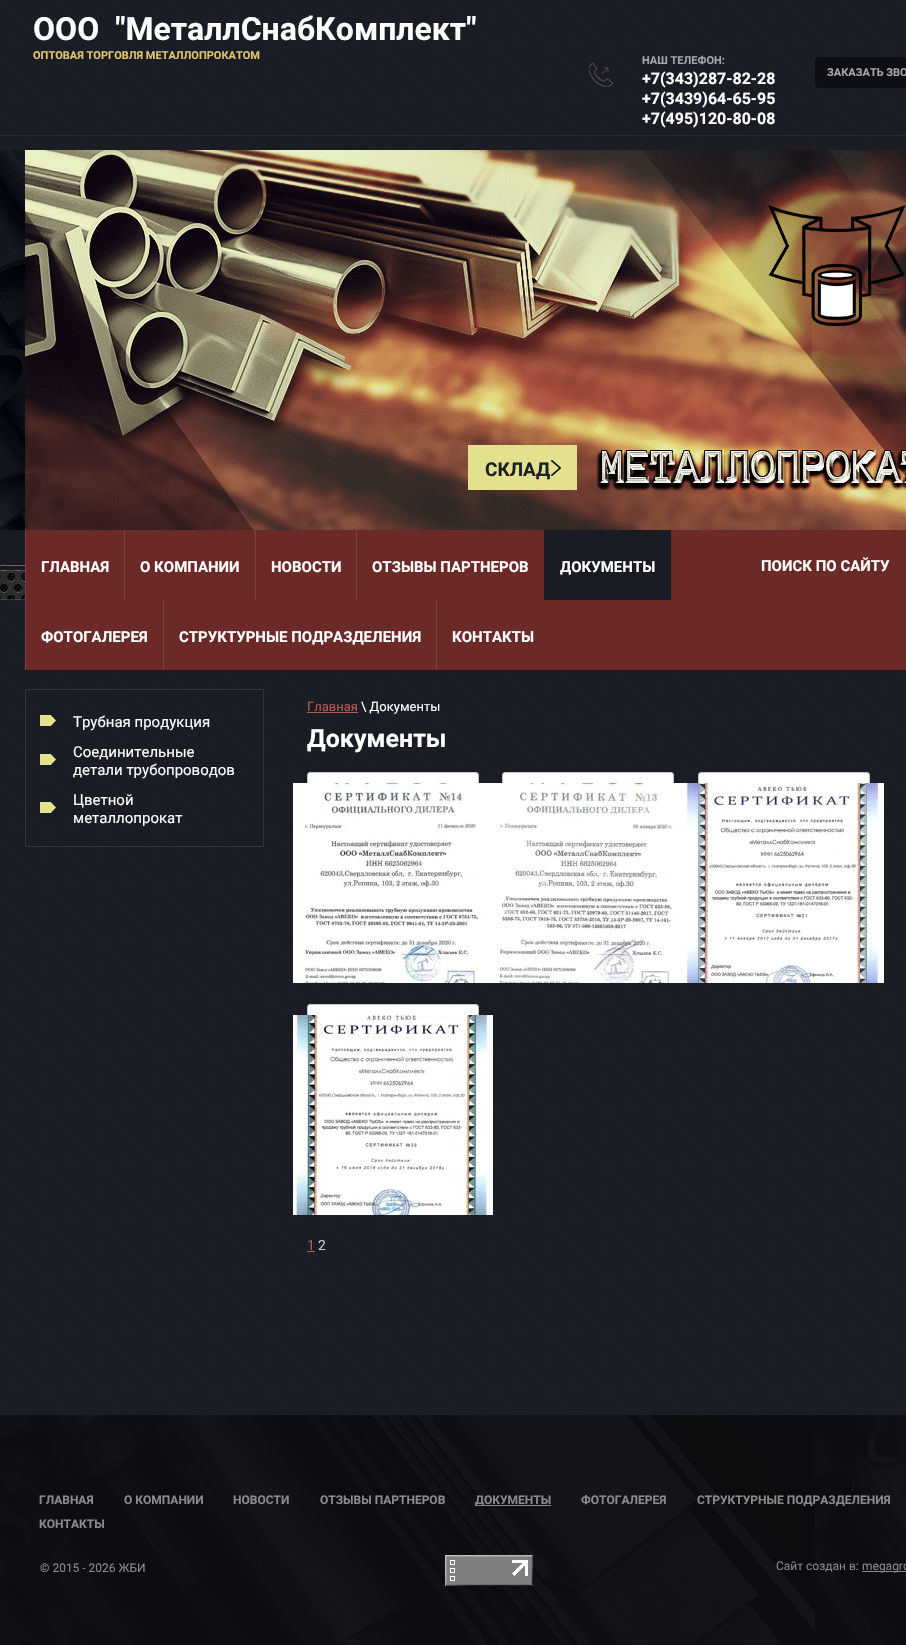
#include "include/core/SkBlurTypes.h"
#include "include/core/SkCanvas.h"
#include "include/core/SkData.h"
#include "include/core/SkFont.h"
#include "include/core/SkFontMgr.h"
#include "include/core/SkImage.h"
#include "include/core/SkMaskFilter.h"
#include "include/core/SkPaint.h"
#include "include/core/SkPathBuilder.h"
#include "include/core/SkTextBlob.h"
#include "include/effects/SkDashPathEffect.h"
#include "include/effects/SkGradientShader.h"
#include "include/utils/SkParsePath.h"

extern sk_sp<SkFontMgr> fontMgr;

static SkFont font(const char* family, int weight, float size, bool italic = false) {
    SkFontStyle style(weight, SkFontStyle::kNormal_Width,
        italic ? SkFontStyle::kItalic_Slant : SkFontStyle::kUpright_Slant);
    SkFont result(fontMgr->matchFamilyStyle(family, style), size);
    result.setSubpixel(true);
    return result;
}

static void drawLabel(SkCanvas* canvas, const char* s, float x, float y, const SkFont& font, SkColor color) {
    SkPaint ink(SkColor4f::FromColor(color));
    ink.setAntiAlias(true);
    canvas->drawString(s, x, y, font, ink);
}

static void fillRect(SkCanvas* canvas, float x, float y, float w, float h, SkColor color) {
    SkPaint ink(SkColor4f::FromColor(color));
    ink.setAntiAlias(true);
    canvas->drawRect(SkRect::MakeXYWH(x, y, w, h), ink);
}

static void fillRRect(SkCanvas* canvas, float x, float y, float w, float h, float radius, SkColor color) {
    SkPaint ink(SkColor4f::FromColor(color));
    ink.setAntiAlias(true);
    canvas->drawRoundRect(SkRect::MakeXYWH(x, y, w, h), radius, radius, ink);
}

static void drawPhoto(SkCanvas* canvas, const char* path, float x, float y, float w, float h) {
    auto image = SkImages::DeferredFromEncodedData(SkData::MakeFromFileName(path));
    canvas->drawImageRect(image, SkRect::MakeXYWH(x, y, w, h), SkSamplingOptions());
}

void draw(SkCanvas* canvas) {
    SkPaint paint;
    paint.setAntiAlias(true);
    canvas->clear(0xFFFFFFFF);
    drawPhoto(canvas, "assets/img1.png", 0, 0, 906, 1415);
    SkFont font1 = font("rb", 700, 32);
    drawLabel(canvas, "ООО  \"МеталлСнабКомплект\"", 33, 40, font1, 0xFFFFFFFF);
    SkFont font2 = font("rb", 700, 11);
    drawLabel(canvas, "ОПТОВАЯ ТОРГОВЛЯ МЕТАЛЛОПРОКАТОМ", 33, 59, font2, 0xFFDDC66E);
    drawLabel(canvas, "НАШ ТЕЛЕФОН:", 642, 64, font2, 0xFFA6A6A6);
    drawPhoto(canvas, "assets/img2.png", 589, 63, 24, 24);
    SkFont font3 = font("rb", 700, 16);
    drawLabel(canvas, "+7(343)287-82-28", 642, 84, font3, 0xFFFFFFFF);
    drawLabel(canvas, "+7(3439)64-65-95", 642, 104, font3, 0xFFFFFFFF);
    drawLabel(canvas, "+7(495)120-80-08", 642, 124, font3, 0xFFFFFFFF);
    fillRRect(canvas, 815, 57, 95, 31, 4, 0x80000000);
    drawLabel(canvas, "ЗАКАЗАТЬ ЗВО", 827, 76, font2, 0xFFA6A6A6);
    fillRect(canvas, 0, 135, 906, 1, 0x66323A46);
    drawPhoto(canvas, "assets/img3.png", 0, 150, 906, 450);
    drawPhoto(canvas, "assets/img4.png", 768, 205, 137, 121);
    fillRect(canvas, 468, 445, 109, 45, 0xFFE3E18E);
    SkFont font4 = font("rb", 700, 19);
    drawLabel(canvas, "СКЛАД", 485, 476, font4, 0xFF1D2127);
    drawPhoto(canvas, "assets/img5.png", 551, 460, 10, 16);
    fillRect(canvas, 26, 530, 880, 140, 0xFF6B2A27);
    fillRect(canvas, 25, 530, 1, 140, 0xFF7A403D);
    SkFont font5 = font("rb", 700, 15);
    drawLabel(canvas, "ГЛАВНАЯ", 41, 572, font5, 0xFFFFFFFF);
    fillRect(canvas, 124, 530, 1, 70, 0xFF7A403D);
    drawLabel(canvas, "О КОМПАНИИ", 140, 572, font5, 0xFFFFFFFF);
    fillRect(canvas, 255, 530, 1, 70, 0xFF7A403D);
    drawLabel(canvas, "НОВОСТИ", 271, 572, font5, 0xFFFFFFFF);
    fillRect(canvas, 356, 530, 1, 70, 0xFF7A403D);
    drawLabel(canvas, "ОТЗЫВЫ ПАРТНЕРОВ", 372, 572, font5, 0xFFFFFFFF);
    fillRect(canvas, 544, 530, 127, 70, 0xFF191D23);
    drawLabel(canvas, "ДОКУМЕНТЫ", 560, 572, font5, 0xFFFFFFFF);
    drawLabel(canvas, "ФОТОГАЛЕРЕЯ", 41, 642, font5, 0xFFFFFFFF);
    fillRect(canvas, 163, 600, 1, 70, 0xFF7A403D);
    drawLabel(canvas, "СТРУКТУРНЫЕ ПОДРАЗДЕЛЕНИЯ", 179, 642, font5, 0xFFFFFFFF);
    fillRect(canvas, 436, 600, 1, 70, 0xFF7A403D);
    drawLabel(canvas, "КОНТАКТЫ", 452, 642, font5, 0xFFFFFFFF);
    drawLabel(canvas, "ПОИСК ПО САЙТУ", 761, 571, font5, 0xFFFFFFFF);
    paint.setStroke(true);
    paint.setStrokeWidth(1);
    paint.setColor(0xFF333631);
    canvas->drawRect(SkRect::MakeXYWH(25.5f, 689.5f, 238, 157), paint);
    drawPhoto(canvas, "assets/img6.png", 40, 715, 16, 11);
    SkFont font6 = font("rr", 400, 15);
    drawLabel(canvas, "Трубная продукция", 73, 727, font6, 0xFFFFFFFF);
    drawPhoto(canvas, "assets/img7.png", 40, 754, 16, 11);
    drawLabel(canvas, "Соединительные", 73, 757, font6, 0xFFFFFFFF);
    drawLabel(canvas, "детали трубопроводов", 73, 775, font6, 0xFFFFFFFF);
    drawPhoto(canvas, "assets/img8.png", 40, 802, 16, 11);
    drawLabel(canvas, "Цветной", 73, 805, font6, 0xFFFFFFFF);
    drawLabel(canvas, "металлопрокат", 73, 823, font6, 0xFFFFFFFF);
    SkFont font7 = font("rr", 400, 13);
    drawLabel(canvas, "Главная", 307, 711, font7, 0xFFB75A56);
    fillRect(canvas, 307, 712, 51, 1, 0xFFB75A56);
    drawLabel(canvas, "\\ Документы", 361, 711, font7, 0xFFFFFFFF);
    SkFont font8 = font("rb", 700, 25);
    drawLabel(canvas, "Документы", 307, 747, font8, 0xFFFFFFFF);
    paint.setStroke(false);
    paint.setColor(0xFFFFFFFF);
    canvas->drawRoundRect(SkRect::MakeXYWH(307.5f, 772.5f, 171, 171), 2.5f, 2.5f, paint);
    paint.setStroke(true);
    paint.setColor(0xFFC5C5C5);
    canvas->drawRoundRect(SkRect::MakeXYWH(307.5f, 772.5f, 171, 171), 2.5f, 2.5f, paint);
    drawPhoto(canvas, "assets/img9.png", 293, 783, 200, 200);
    paint.setStroke(false);
    paint.setColor(0xFFFFFFFF);
    canvas->drawRoundRect(SkRect::MakeXYWH(502.5f, 772.5f, 171, 171), 2.5f, 2.5f, paint);
    paint.setStroke(true);
    paint.setColor(0xFFC5C5C5);
    canvas->drawRoundRect(SkRect::MakeXYWH(502.5f, 772.5f, 171, 171), 2.5f, 2.5f, paint);
    drawPhoto(canvas, "assets/img10.png", 493, 783, 191, 200);
    paint.setStroke(false);
    paint.setColor(0xFFFFFFFF);
    canvas->drawRoundRect(SkRect::MakeXYWH(698.5f, 772.5f, 171, 171), 2.5f, 2.5f, paint);
    paint.setStroke(true);
    paint.setColor(0xFFC5C5C5);
    canvas->drawRoundRect(SkRect::MakeXYWH(698.5f, 772.5f, 171, 171), 2.5f, 2.5f, paint);
    drawPhoto(canvas, "assets/img11.png", 684, 783, 200, 200);
    paint.setStroke(false);
    paint.setColor(0xFFFFFFFF);
    canvas->drawRoundRect(SkRect::MakeXYWH(307.5f, 1004.5f, 171, 171), 2.5f, 2.5f, paint);
    paint.setStroke(true);
    paint.setColor(0xFFC5C5C5);
    canvas->drawRoundRect(SkRect::MakeXYWH(307.5f, 1004.5f, 171, 171), 2.5f, 2.5f, paint);
    drawPhoto(canvas, "assets/img12.png", 293, 1015, 200, 200);
    SkFont font9 = font("rr", 400, 14);
    drawLabel(canvas, "1", 307, 1250, font9, 0xFFB75A56);
    fillRect(canvas, 307, 1251, 8, 1, 0xFFB75A56);
    drawLabel(canvas, "2", 318, 1250, font9, 0xFFCCCBCB);
    drawPhoto(canvas, "assets/img13.png", 0, 1415, 906, 230);
    SkFont font10 = font("rb", 700, 12);
    drawLabel(canvas, "ГЛАВНАЯ", 39, 1504, font10, 0xFF8A8A8A);
    drawLabel(canvas, "О КОМПАНИИ", 124, 1504, font10, 0xFF8A8A8A);
    drawLabel(canvas, "НОВОСТИ", 233, 1504, font10, 0xFF8A8A8A);
    drawLabel(canvas, "ОТЗЫВЫ ПАРТНЕРОВ", 320, 1504, font10, 0xFF8A8A8A);
    fillRect(canvas, 475, 1505, 76, 1, 0xFF8A8A8A);
    drawLabel(canvas, "ДОКУМЕНТЫ", 475, 1504, font10, 0xFF8A8A8A);
    drawLabel(canvas, "ФОТОГАЛЕРЕЯ", 581, 1504, font10, 0xFF8A8A8A);
    drawLabel(canvas, "СТРУКТУРНЫЕ ПОДРАЗДЕЛЕНИЯ", 697, 1504, font10, 0xFF8A8A8A);
    drawLabel(canvas, "КОНТАКТЫ", 39, 1528, font10, 0xFF8A8A8A);
    SkFont font11 = font("rr", 400, 12);
    drawLabel(canvas, "© 2015 - 2026 ЖБИ", 40, 1572, font11, 0xFF8A8A8A);
    drawPhoto(canvas, "assets/img14.png", 445, 1555, 88, 31);
    drawLabel(canvas, "Сайт создан в:", 776, 1570, font11, 0xFF8A8A8A);
    fillRect(canvas, 862, 1571, 44, 1, 0xFF8A8A8A);
    drawLabel(canvas, "megagro", 862, 1570, font11, 0xFF8A8A8A);
}
